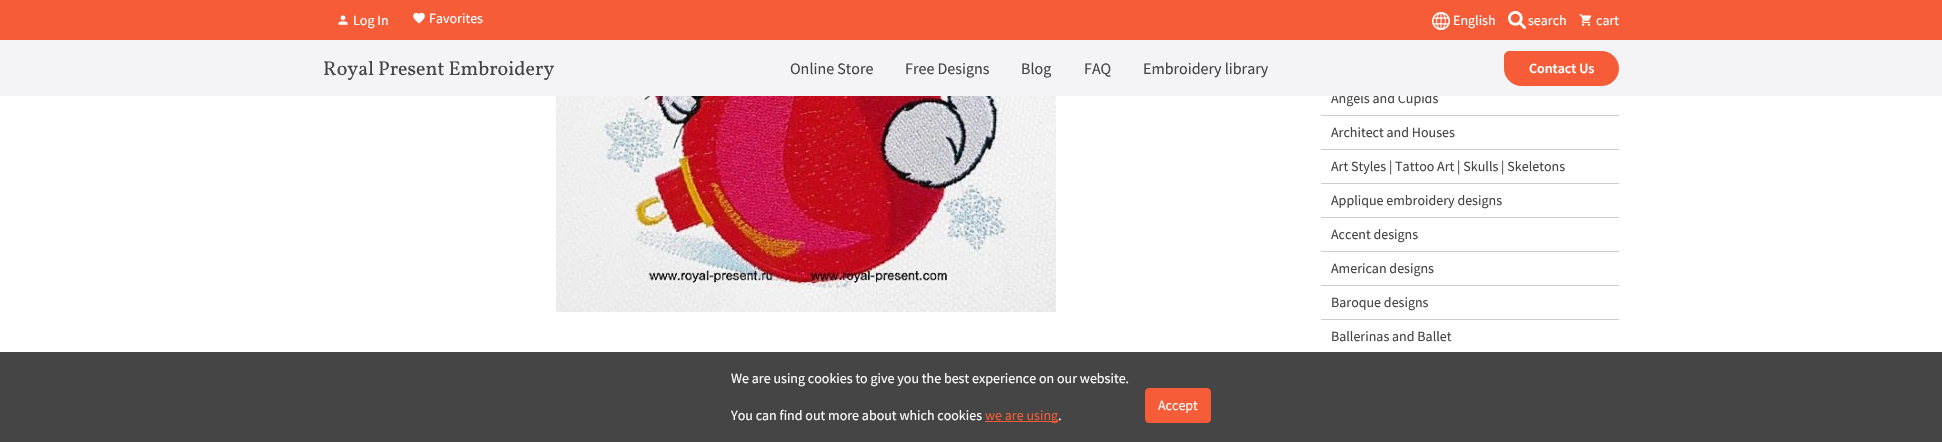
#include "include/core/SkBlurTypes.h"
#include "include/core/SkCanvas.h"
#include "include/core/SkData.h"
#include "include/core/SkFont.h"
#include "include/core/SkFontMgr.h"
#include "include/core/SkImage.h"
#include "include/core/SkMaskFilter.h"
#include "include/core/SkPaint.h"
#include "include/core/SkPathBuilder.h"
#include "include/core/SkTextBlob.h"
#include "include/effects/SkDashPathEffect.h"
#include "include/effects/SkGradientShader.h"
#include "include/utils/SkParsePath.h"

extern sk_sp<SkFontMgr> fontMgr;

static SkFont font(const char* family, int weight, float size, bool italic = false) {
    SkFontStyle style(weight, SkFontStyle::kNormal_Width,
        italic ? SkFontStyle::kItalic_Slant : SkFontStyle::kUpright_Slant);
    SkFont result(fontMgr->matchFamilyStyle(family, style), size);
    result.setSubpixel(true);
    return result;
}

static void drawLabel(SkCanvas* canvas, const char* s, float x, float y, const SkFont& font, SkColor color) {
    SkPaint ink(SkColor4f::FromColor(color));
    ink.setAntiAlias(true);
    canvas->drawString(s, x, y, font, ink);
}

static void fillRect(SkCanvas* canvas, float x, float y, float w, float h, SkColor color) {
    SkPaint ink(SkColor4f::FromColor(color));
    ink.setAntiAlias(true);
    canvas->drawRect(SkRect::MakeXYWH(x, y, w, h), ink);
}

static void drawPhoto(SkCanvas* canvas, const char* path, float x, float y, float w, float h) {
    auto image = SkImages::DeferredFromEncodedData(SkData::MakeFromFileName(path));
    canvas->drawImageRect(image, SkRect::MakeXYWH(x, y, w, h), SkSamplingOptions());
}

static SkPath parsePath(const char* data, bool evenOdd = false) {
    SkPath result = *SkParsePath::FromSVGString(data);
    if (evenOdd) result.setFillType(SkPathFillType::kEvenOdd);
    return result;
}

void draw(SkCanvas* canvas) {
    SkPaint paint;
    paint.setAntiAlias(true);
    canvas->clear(0xFFFFFFFF);
    fillRect(canvas, 0, 0, 1942, 40, 0xFFF55C37);
    drawPhoto(canvas, "assets/img1.png", 338, 15, 10, 10);
    SkFont font1 = font("Source Sans Pro", 400, 14);
    drawLabel(canvas, "Log In", 353, 25, font1, 0xFFFFFFFF);
    drawPhoto(canvas, "assets/img2.png", 413, 12, 12, 12);
    drawLabel(canvas, "Favorites", 429, 23, font1, 0xFFFFFFFF);
    drawPhoto(canvas, "assets/img3.png", 1432, 12, 18, 18);
    drawLabel(canvas, "English", 1453, 25, font1, 0xFFFFFFFF);
    drawPhoto(canvas, "assets/img4.png", 1508, 11, 18, 18);
    drawLabel(canvas, "search", 1528, 25, font1, 0xFFFFFFFF);
    drawPhoto(canvas, "assets/img5.png", 1579, 14, 13, 12);
    drawLabel(canvas, "cart", 1596, 25, font1, 0xFFFFFFFF);
    drawLabel(canvas, "Angels and Cupids", 1331, 103, font1, 0xFF454545);
    fillRect(canvas, 0, 40, 1942, 56, 0xFFF4F3F5);
    SkFont font2 = font("Vollkorn", 400, 20);
    drawLabel(canvas, "Royal Present Embroidery", 323, 75, font2, 0xFF454545);
    SkFont font3 = font("Source Sans Pro", 400, 16);
    drawLabel(canvas, "Online Store", 790, 74, font3, 0xFF454545);
    drawLabel(canvas, "Free Designs", 905, 74, font3, 0xFF454545);
    drawLabel(canvas, "Blog", 1021, 74, font3, 0xFF454545);
    drawLabel(canvas, "FAQ", 1084, 74, font3, 0xFF454545);
    drawLabel(canvas, "Embroidery library", 1143, 74, font3, 0xFF454545);
    paint.setColor(0xFFF55C37);
    canvas->drawPath(parsePath("M1509 51.5H1601.5C1611 51.5 1618.5 59 1618.5 68.5C1618.5 78 1611 85.5 1601.5 85.5H1521.5C1512 85.5 1504.5 78 1504.5 68.5V56C1504.5 53.5 1506.5 51.5 1509 51.5Z"), paint);
    paint.setStroke(true);
    paint.setStrokeWidth(1);
    canvas->drawPath(parsePath("M1509 51.5H1601.5C1611 51.5 1618.5 59 1618.5 68.5C1618.5 78 1611 85.5 1601.5 85.5H1521.5C1512 85.5 1504.5 78 1504.5 68.5V56C1504.5 53.5 1506.5 51.5 1509 51.5Z"), paint);
    SkFont font4 = font("Source Sans Pro", 600, 14);
    drawLabel(canvas, "Contact Us", 1529, 73, font4, 0xFFFFFFFF);
    drawPhoto(canvas, "assets/img6.png", 556, 96, 500, 216);
    fillRect(canvas, 1321, 115, 298, 1, 0xFFCBCED1);
    drawLabel(canvas, "Architect and Houses", 1331, 137, font1, 0xFF454545);
    fillRect(canvas, 1321, 149, 298, 1, 0xFFCBCED1);
    drawLabel(canvas, "Art Styles | Tattoo Art | Skulls | Skeletons", 1331, 171, font1, 0xFF454545);
    fillRect(canvas, 1321, 183, 298, 1, 0xFFCBCED1);
    drawLabel(canvas, "Applique embroidery designs", 1331, 205, font1, 0xFF454545);
    fillRect(canvas, 1321, 217, 298, 1, 0xFFCBCED1);
    drawLabel(canvas, "Accent designs", 1331, 239, font1, 0xFF454545);
    fillRect(canvas, 1321, 251, 298, 1, 0xFFCBCED1);
    drawLabel(canvas, "American designs", 1331, 273, font1, 0xFF454545);
    fillRect(canvas, 1321, 285, 298, 1, 0xFFCBCED1);
    drawLabel(canvas, "Baroque designs", 1331, 307, font1, 0xFF454545);
    fillRect(canvas, 1321, 319, 298, 1, 0xFFCBCED1);
    drawLabel(canvas, "Ballerinas and Ballet", 1331, 341, font1, 0xFF454545);
    fillRect(canvas, 0, 352, 1942, 90, 0xFF454545);
    drawLabel(canvas, "We are using cookies to give you the best experience on our website.", 731, 383, font1, 0xFFFFFFFF);
    drawLabel(canvas, "You can find out more about which cookies", 731, 420, font1, 0xFFFFFFFF);
    fillRect(canvas, 985, 421, 73, 1, 0xFFF55C37);
    drawLabel(canvas, "we are using", 985, 420, font1, 0xFFF55C37);
    drawLabel(canvas, ".", 1058, 420, font1, 0xFFFFFFFF);
    paint.setStroke(false);
    canvas->drawRoundRect(SkRect::MakeXYWH(1145.5f, 388.5f, 65, 34), 3.5f, 3.5f, paint);
    paint.setStroke(true);
    canvas->drawRoundRect(SkRect::MakeXYWH(1145.5f, 388.5f, 65, 34), 3.5f, 3.5f, paint);
    drawLabel(canvas, "Accept", 1158, 410, font1, 0xFFFFFFFF);
}
